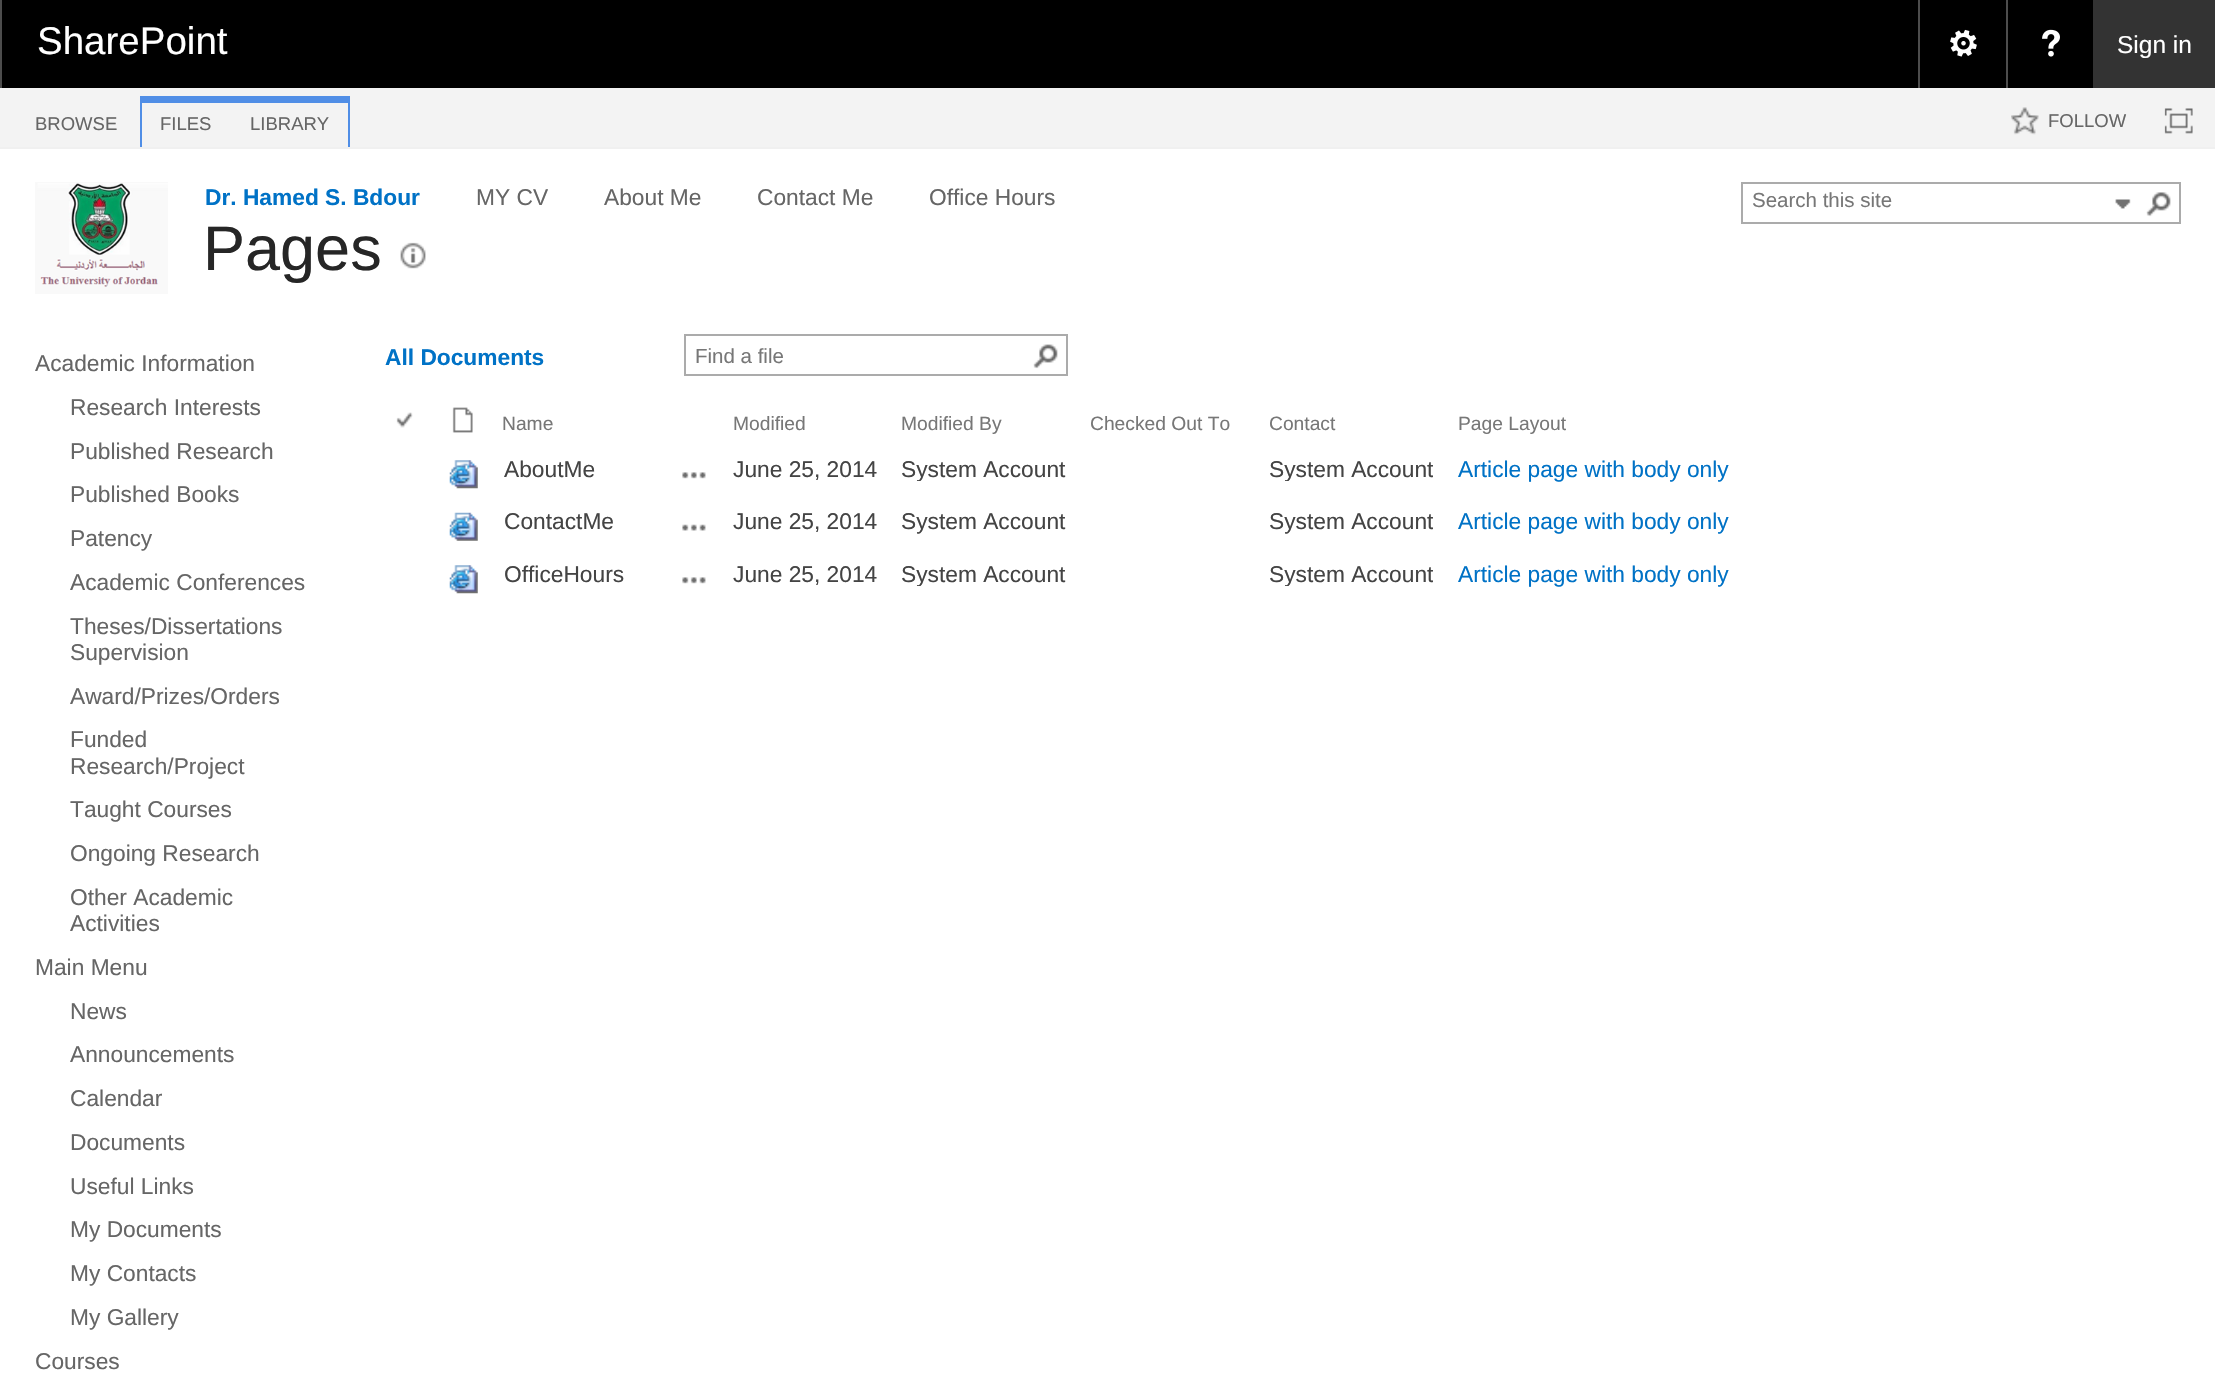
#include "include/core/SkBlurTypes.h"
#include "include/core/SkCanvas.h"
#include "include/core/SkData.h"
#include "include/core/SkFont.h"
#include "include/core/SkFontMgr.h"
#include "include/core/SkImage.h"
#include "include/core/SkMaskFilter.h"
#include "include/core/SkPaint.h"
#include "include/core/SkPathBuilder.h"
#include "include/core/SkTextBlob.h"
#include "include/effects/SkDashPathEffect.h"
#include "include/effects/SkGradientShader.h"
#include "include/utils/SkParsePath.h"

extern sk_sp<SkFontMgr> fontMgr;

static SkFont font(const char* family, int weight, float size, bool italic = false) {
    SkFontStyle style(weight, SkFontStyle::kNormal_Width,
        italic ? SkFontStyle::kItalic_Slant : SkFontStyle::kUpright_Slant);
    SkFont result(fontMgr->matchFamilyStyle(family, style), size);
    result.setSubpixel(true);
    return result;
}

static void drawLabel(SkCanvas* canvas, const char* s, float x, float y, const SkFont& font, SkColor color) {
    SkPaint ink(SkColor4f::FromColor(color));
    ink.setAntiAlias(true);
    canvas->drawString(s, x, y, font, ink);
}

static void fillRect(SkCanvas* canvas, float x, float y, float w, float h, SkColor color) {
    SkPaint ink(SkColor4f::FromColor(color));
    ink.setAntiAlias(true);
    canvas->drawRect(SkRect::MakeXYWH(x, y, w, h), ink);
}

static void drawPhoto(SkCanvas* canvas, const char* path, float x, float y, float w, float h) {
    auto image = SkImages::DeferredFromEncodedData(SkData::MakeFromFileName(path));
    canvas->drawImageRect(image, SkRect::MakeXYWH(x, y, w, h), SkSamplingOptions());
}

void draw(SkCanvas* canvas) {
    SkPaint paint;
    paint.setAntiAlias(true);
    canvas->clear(0xFFFFFFFF);
    fillRect(canvas, 2, 0, 2091, 88, 0xFF000000);
    fillRect(canvas, 0, 0, 2, 88, 0xFF4D4D4D);
    SkFont font1 = font("Liberation Sans", 400, 38.5f);
    drawLabel(canvas, "SharePoint", 37, 54, font1, 0xFFFFFFFF);
    fillRect(canvas, 1918, 0, 2, 88, 0xFF4D4D4D);
    drawPhoto(canvas, "assets/img1.png", 1950, 29, 27, 28);
    fillRect(canvas, 2006, 0, 2, 88, 0xFF4D4D4D);
    drawPhoto(canvas, "assets/img2.png", 2042, 29, 18, 28);
    fillRect(canvas, 2093, 0, 122, 88, 0xFF333333);
    SkFont font2 = font("Liberation Sans", 400, 24.5f);
    drawLabel(canvas, "Sign in", 2117, 53, font2, 0xFFFFFFFF);
    fillRect(canvas, 0, 88, 2215, 59, 0xFFF3F3F3);
    fillRect(canvas, 0, 147, 2215, 2, 0xFFF0F0F0);
    SkFont font3 = font("Liberation Sans", 400, 18.5f);
    drawLabel(canvas, "BROWSE", 35, 130, font3, 0xFF666666);
    fillRect(canvas, 140, 96, 210, 7, 0xFF508EE6);
    fillRect(canvas, 140, 103, 2, 44, 0xFF508EE6);
    drawLabel(canvas, "FILES", 160, 130, font3, 0xFF666666);
    fillRect(canvas, 348, 103, 2, 44, 0xFF508EE6);
    drawLabel(canvas, "LIBRARY", 250, 130, font3, 0xFF666666);
    drawPhoto(canvas, "assets/img3.png", 2011, 107, 28, 28);
    drawLabel(canvas, "FOLLOW", 2048, 127, font3, 0xFF666666);
    drawPhoto(canvas, "assets/img4.png", 2164, 108, 29, 26);
    drawPhoto(canvas, "assets/img5.png", 35, 182, 133, 112);
    SkFont font4 = font("Liberation Sans", 700, 22.75f);
    drawLabel(canvas, "Dr. Hamed S. Bdour", 205, 205, font4, 0xFF0072C6);
    SkFont font5 = font("Liberation Sans", 400, 22.75f);
    drawLabel(canvas, "MY CV", 476, 205, font5, 0xFF666666);
    drawLabel(canvas, "About Me", 604, 205, font5, 0xFF666666);
    drawLabel(canvas, "Contact Me", 757, 205, font5, 0xFF666666);
    drawLabel(canvas, "Office Hours", 929, 205, font5, 0xFF666666);
    SkFont font6 = font("Liberation Sans", 400, 63);
    drawLabel(canvas, "Pages", 203, 270, font6, 0xFF262626);
    drawPhoto(canvas, "assets/img6.png", 400, 242, 26, 27);
    paint.setStroke(true);
    paint.setStrokeWidth(2);
    paint.setColor(0xFFABABAB);
    canvas->drawRect(SkRect::MakeXYWH(1742, 183, 438, 40), paint);
    SkFont font7 = font("Liberation Sans", 400, 20.5f);
    drawLabel(canvas, "Search this site", 1752, 207, font7, 0xFF777777);
    drawPhoto(canvas, "assets/img7.png", 2115, 199, 16, 10);
    drawPhoto(canvas, "assets/img8.png", 2146, 192, 25, 25);
    drawLabel(canvas, "Academic Information", 35, 371, font5, 0xFF666666);
    drawLabel(canvas, "Research Interests", 70, 415, font5, 0xFF666666);
    drawLabel(canvas, "Published Research", 70, 459, font5, 0xFF666666);
    drawLabel(canvas, "Published Books", 70, 502, font5, 0xFF666666);
    drawLabel(canvas, "Patency", 70, 546, font5, 0xFF666666);
    drawLabel(canvas, "Academic Conferences", 70, 590, font5, 0xFF666666);
    drawLabel(canvas, "Theses/Dissertations", 70, 634, font5, 0xFF666666);
    drawLabel(canvas, "Supervision", 70, 660, font5, 0xFF666666);
    drawLabel(canvas, "Award/Prizes/Orders", 70, 704, font5, 0xFF666666);
    drawLabel(canvas, "Funded", 70, 747, font5, 0xFF666666);
    drawLabel(canvas, "Research/Project", 70, 774, font5, 0xFF666666);
    drawLabel(canvas, "Taught Courses", 70, 817, font5, 0xFF666666);
    drawLabel(canvas, "Ongoing Research", 70, 861, font5, 0xFF666666);
    drawLabel(canvas, "Other Academic", 70, 905, font5, 0xFF666666);
    drawLabel(canvas, "Activities", 70, 931, font5, 0xFF666666);
    drawLabel(canvas, "Main Menu", 35, 975, font5, 0xFF666666);
    drawLabel(canvas, "News", 70, 1019, font5, 0xFF666666);
    drawLabel(canvas, "Announcements", 70, 1062, font5, 0xFF666666);
    drawLabel(canvas, "Calendar", 70, 1106, font5, 0xFF666666);
    drawLabel(canvas, "Documents", 70, 1150, font5, 0xFF666666);
    drawLabel(canvas, "Useful Links", 70, 1194, font5, 0xFF666666);
    drawLabel(canvas, "My Documents", 70, 1237, font5, 0xFF666666);
    drawLabel(canvas, "My Contacts", 70, 1281, font5, 0xFF666666);
    drawLabel(canvas, "My Gallery", 70, 1325, font5, 0xFF666666);
    drawLabel(canvas, "Courses", 35, 1369, font5, 0xFF666666);
    drawLabel(canvas, "All Documents", 385, 365, font4, 0xFF0072C6);
    canvas->drawRect(SkRect::MakeXYWH(685, 335, 382, 40), paint);
    drawLabel(canvas, "Find a file", 695, 363, font7, 0xFF777777);
    drawPhoto(canvas, "assets/img9.png", 1033, 344, 25, 25);
    drawPhoto(canvas, "assets/img10.png", 396, 412, 17, 16);
    drawPhoto(canvas, "assets/img11.png", 452, 407, 21, 26);
    SkFont font8 = font("Liberation Sans", 400, 19.25f);
    drawLabel(canvas, "Name", 502, 430, font8, 0xFF777777);
    drawLabel(canvas, "Modified", 733, 430, font8, 0xFF777777);
    drawLabel(canvas, "Modified By", 901, 430, font8, 0xFF777777);
    drawLabel(canvas, "Checked Out To", 1090, 430, font8, 0xFF777777);
    drawLabel(canvas, "Contact", 1269, 430, font8, 0xFF777777);
    drawLabel(canvas, "Page Layout", 1458, 430, font8, 0xFF777777);
    drawPhoto(canvas, "assets/img12.png", 449, 460, 29, 29);
    drawLabel(canvas, "AboutMe", 504, 477, font5, 0xFF444444);
    drawPhoto(canvas, "assets/img13.png", 682, 472, 24, 7);
    drawLabel(canvas, "June 25, 2014", 733, 477, font5, 0xFF444444);
    canvas->save();
    canvas->clipRect(SkRect::MakeXYWH(901, 455, 165, 26));
    drawLabel(canvas, "System Account", 901, 477, font5, 0xFF444444);
    canvas->restore();
    canvas->save();
    canvas->clipRect(SkRect::MakeXYWH(1269, 455, 164, 26));
    drawLabel(canvas, "System Account", 1269, 477, font5, 0xFF444444);
    canvas->restore();
    drawLabel(canvas, "Article page with body only", 1458, 477, font5, 0xFF0072C6);
    drawPhoto(canvas, "assets/img14.png", 449, 512, 29, 29);
    drawLabel(canvas, "ContactMe", 504, 529, font5, 0xFF444444);
    drawPhoto(canvas, "assets/img15.png", 682, 524, 24, 7);
    drawLabel(canvas, "June 25, 2014", 733, 529, font5, 0xFF444444);
    drawLabel(canvas, "System Account", 901, 529, font5, 0xFF444444);
    canvas->save();
    canvas->clipRect(SkRect::MakeXYWH(1269, 508, 164, 26));
    drawLabel(canvas, "System Account", 1269, 529, font5, 0xFF444444);
    canvas->restore();
    drawLabel(canvas, "Article page with body only", 1458, 529, font5, 0xFF0072C6);
    drawPhoto(canvas, "assets/img12.png", 449, 565, 29, 29);
    drawLabel(canvas, "OfficeHours", 504, 582, font5, 0xFF444444);
    drawPhoto(canvas, "assets/img13.png", 682, 577, 24, 7);
    drawLabel(canvas, "June 25, 2014", 733, 582, font5, 0xFF444444);
    canvas->save();
    canvas->clipRect(SkRect::MakeXYWH(901, 560, 165, 26));
    drawLabel(canvas, "System Account", 901, 582, font5, 0xFF444444);
    canvas->restore();
    canvas->save();
    canvas->clipRect(SkRect::MakeXYWH(1269, 560, 164, 26));
    drawLabel(canvas, "System Account", 1269, 582, font5, 0xFF444444);
    canvas->restore();
    drawLabel(canvas, "Article page with body only", 1458, 582, font5, 0xFF0072C6);
}
